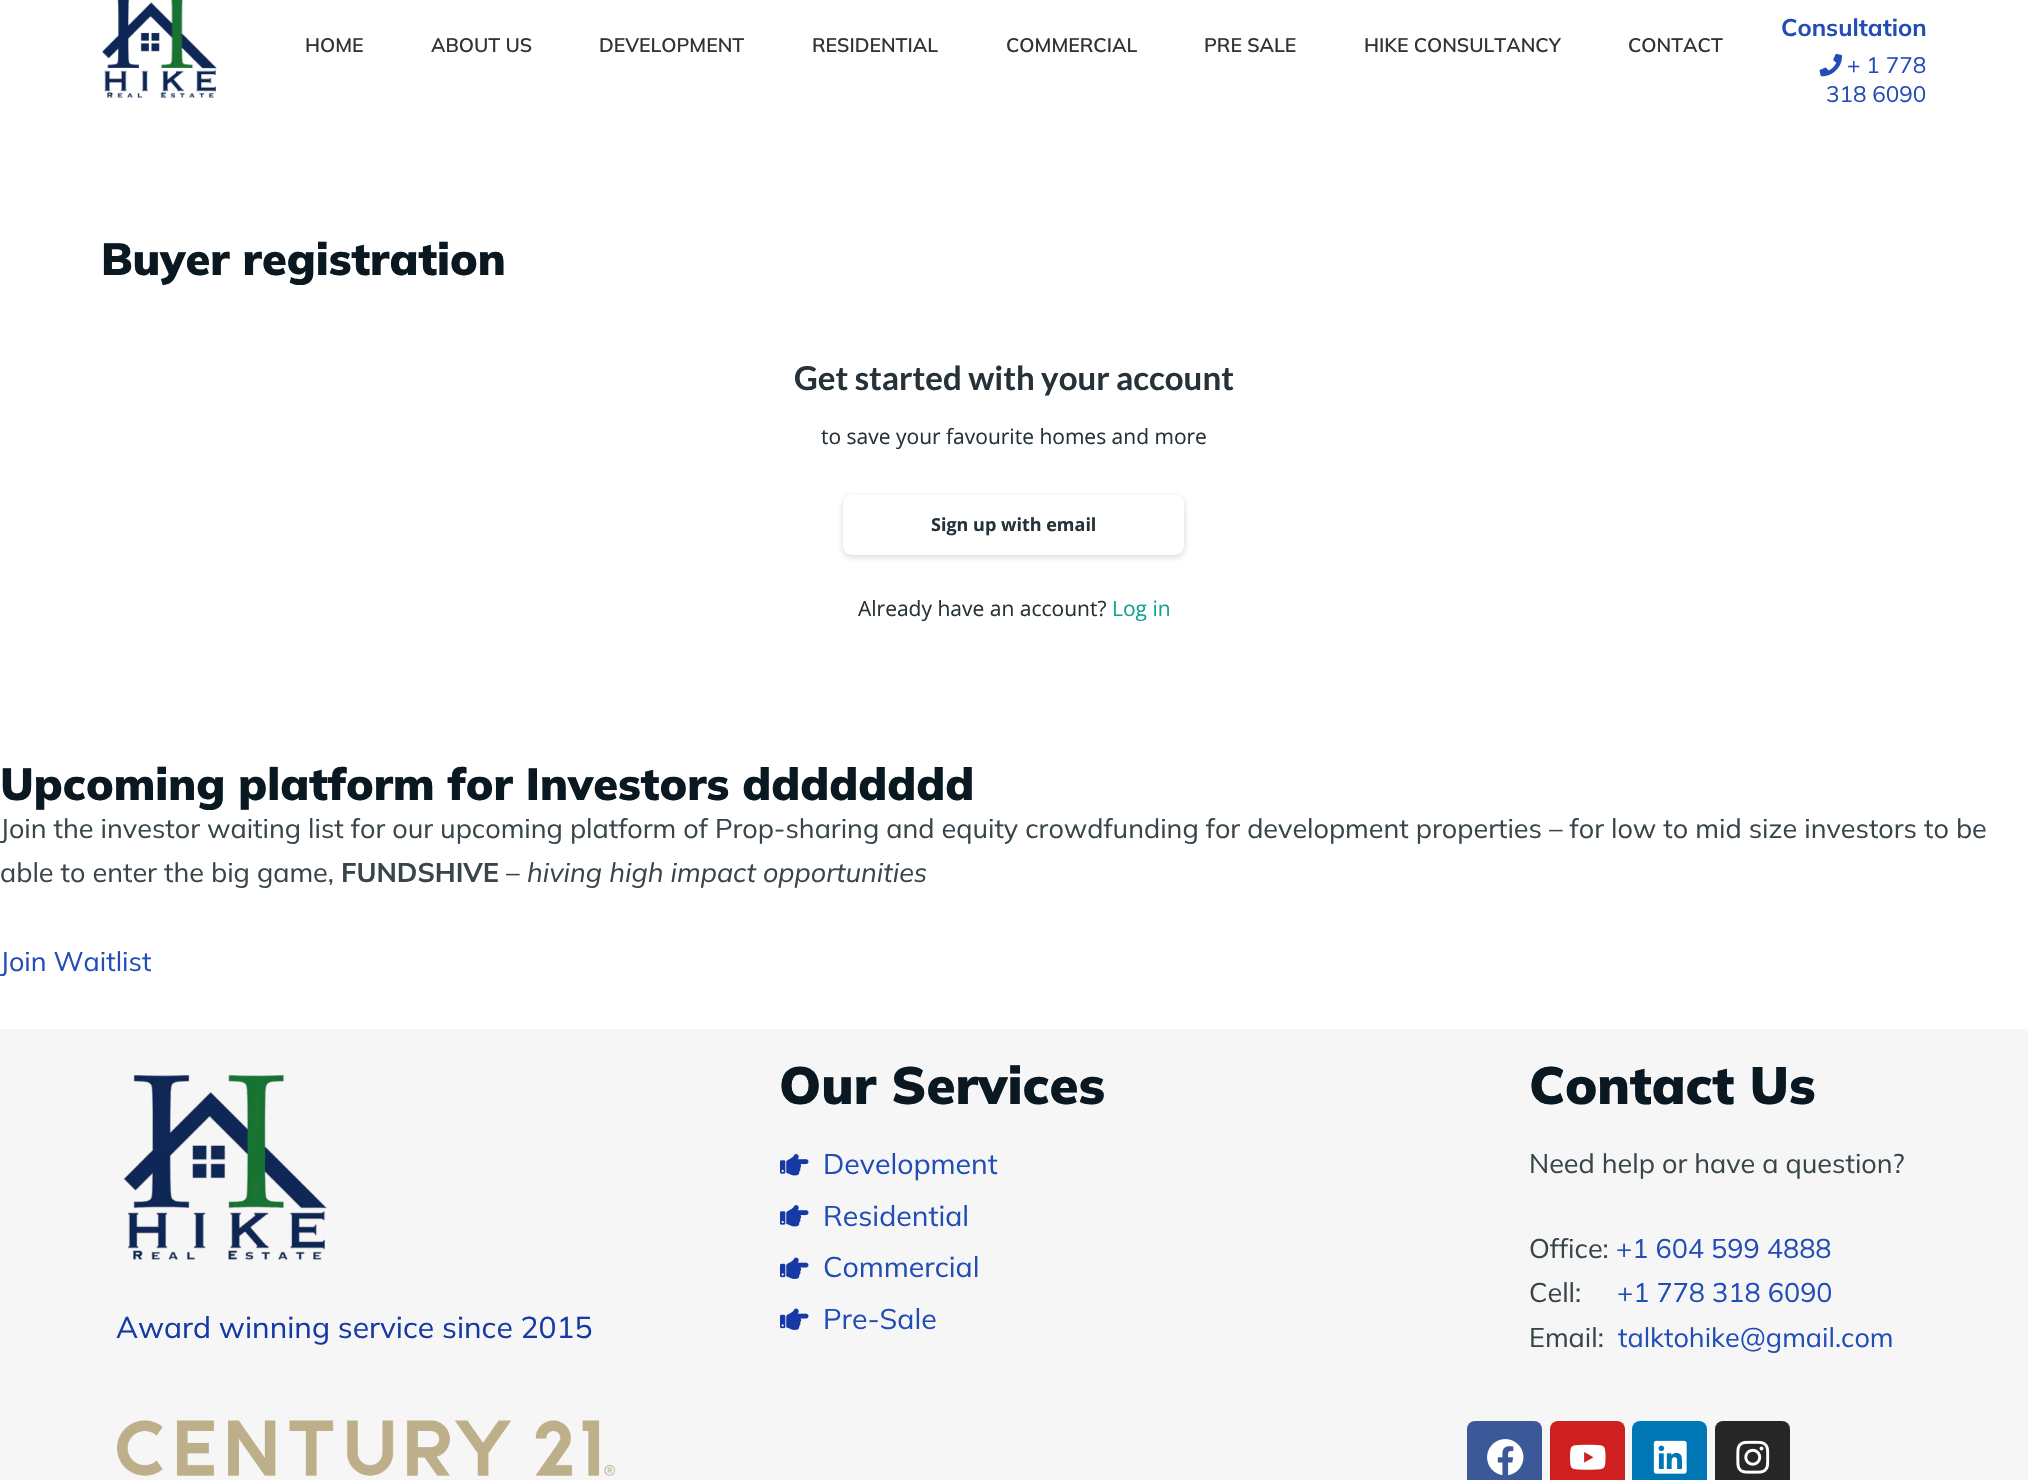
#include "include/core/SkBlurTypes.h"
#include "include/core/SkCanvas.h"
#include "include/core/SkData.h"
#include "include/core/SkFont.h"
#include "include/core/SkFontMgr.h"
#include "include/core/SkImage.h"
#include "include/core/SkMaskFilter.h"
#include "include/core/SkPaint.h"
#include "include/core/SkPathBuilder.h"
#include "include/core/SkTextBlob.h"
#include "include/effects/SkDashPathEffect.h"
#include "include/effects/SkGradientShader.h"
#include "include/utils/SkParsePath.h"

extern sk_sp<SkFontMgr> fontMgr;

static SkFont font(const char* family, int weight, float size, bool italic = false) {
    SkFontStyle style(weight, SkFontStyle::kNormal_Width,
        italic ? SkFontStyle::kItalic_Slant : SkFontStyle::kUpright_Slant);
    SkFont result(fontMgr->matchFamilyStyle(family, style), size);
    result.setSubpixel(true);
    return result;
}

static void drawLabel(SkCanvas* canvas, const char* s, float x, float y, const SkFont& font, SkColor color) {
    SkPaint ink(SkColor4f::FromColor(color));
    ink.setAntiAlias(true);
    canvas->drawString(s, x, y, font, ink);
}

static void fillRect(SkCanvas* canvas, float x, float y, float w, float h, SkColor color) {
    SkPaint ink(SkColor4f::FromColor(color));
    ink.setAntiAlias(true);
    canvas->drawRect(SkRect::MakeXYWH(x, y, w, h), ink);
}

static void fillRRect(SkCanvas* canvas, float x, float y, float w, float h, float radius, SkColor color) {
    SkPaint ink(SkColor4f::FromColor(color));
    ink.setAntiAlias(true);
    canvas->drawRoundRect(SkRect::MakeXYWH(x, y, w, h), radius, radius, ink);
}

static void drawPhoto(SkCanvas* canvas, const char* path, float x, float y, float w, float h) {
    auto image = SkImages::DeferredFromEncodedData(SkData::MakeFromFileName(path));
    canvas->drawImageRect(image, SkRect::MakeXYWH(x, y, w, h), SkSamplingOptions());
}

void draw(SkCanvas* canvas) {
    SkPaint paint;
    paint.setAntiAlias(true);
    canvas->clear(0xFFFFFFFF);
    drawPhoto(canvas, "assets/img1.png", 102, 0, 115, 98);
    SkFont font1 = font("Mulish", 600, 19.5f);
    drawLabel(canvas, "HOME", 305, 52, font1, 0xFF333333);
    drawLabel(canvas, "ABOUT US", 431, 52, font1, 0xFF333333);
    drawLabel(canvas, "DEVELOPMENT", 599, 52, font1, 0xFF333333);
    drawLabel(canvas, "RESIDENTIAL", 812, 52, font1, 0xFF333333);
    drawLabel(canvas, "COMMERCIAL", 1006, 52, font1, 0xFF333333);
    drawLabel(canvas, "PRE SALE", 1204, 52, font1, 0xFF333333);
    drawLabel(canvas, "HIKE CONSULTANCY", 1364, 52, font1, 0xFF333333);
    drawLabel(canvas, "CONTACT", 1628, 52, font1, 0xFF333333);
    SkFont font2 = font("Mulish", 700, 24);
    drawLabel(canvas, "Consultation", 1781, 36, font2, 0xFF224DB7);
    drawPhoto(canvas, "assets/img2.png", 1819, 53, 23, 24);
    SkFont font3 = font("Mulish", 400, 22.5f);
    drawLabel(canvas, "+ 1 778", 1847, 73, font3, 0xFF224DB7);
    drawLabel(canvas, "318 6090", 1826, 102, font3, 0xFF224DB7);
    SkFont font4 = font("Mulish", 900, 45);
    drawLabel(canvas, "Buyer registration", 101, 275, font4, 0xFF0A1821);
    SkFont font5 = font("Lato", 700, 33);
    drawLabel(canvas, "Get started with your account", 794, 390, font5, 0xFF263238);
    SkFont font6 = font("Open Sans", 400, 21);
    drawLabel(canvas, "to save your favourite homes and more", 821, 444, font6, 0xFF263238);
    paint.setColor(0x33263238);
    paint.setMaskFilter(SkMaskFilter::MakeBlur(kNormal_SkBlurStyle, 3));
    canvas->drawRoundRect(SkRect::MakeXYWH(843, 497, 341, 60), 9, 9, paint);
    paint.setMaskFilter(nullptr);
    fillRRect(canvas, 843, 495, 341, 60, 9, 0xFFFFFFFF);
    SkFont font7 = font("Open Sans", 700, 18);
    drawLabel(canvas, "Sign up with email", 931, 531, font7, 0xFF263238);
    drawLabel(canvas, "Already have an account?", 858, 616, font6, 0xFF263238);
    drawLabel(canvas, "Log in", 1112, 616, font6, 0xFF13A48E);
    drawLabel(canvas, "Upcoming platform for Investors dddddddd", 0, 800, font4, 0xFF0A1821);
    SkFont font8 = font("Mulish", 400, 27);
    drawLabel(canvas, "Join the investor waiting list for our upcoming platform of Prop-sharing and equity crowdfunding for development properties – for low to mid size investors to be", 0, 838, font8, 0xFF38454A);
    drawLabel(canvas, "able to enter the big game,", 0, 882, font8, 0xFF38454A);
    SkFont font9 = font("Mulish", 700, 27);
    drawLabel(canvas, "FUNDSHIVE", 341, 882, font9, 0xFF38454A);
    drawLabel(canvas, "–", 506, 882, font8, 0xFF38454A);
    SkFont font10 = font("Mulish", 400, 27, true);
    drawLabel(canvas, "hiving high impact opportunities", 527, 882, font10, 0xFF38454A);
    drawLabel(canvas, "Join Waitlist", 0, 971, font8, 0xFF224DB7);
    fillRect(canvas, 0, 1029, 2028, 451, 0xFFF6F6F6);
    drawPhoto(canvas, "assets/img3.png", 123, 1075, 204, 185);
    SkFont font11 = font("Mulish", 400, 30);
    drawLabel(canvas, "Award winning service since 2015", 116, 1338, font11, 0xFF1739A5);
    SkFont font12 = font("Mulish", 900, 52.5f);
    drawLabel(canvas, "Our Services", 779, 1104, font12, 0xFF0A1821);
    drawPhoto(canvas, "assets/img4.png", 780, 1154, 29, 22);
    SkFont font13 = font("Mulish", 400, 28.5f);
    drawLabel(canvas, "Development", 823, 1174, font13, 0xFF224DB7);
    drawPhoto(canvas, "assets/img4.png", 780, 1205, 29, 22);
    drawLabel(canvas, "Residential", 823, 1226, font13, 0xFF224DB7);
    drawPhoto(canvas, "assets/img5.png", 780, 1257, 29, 22);
    drawLabel(canvas, "Commercial", 823, 1277, font13, 0xFF224DB7);
    drawPhoto(canvas, "assets/img5.png", 780, 1308, 29, 22);
    drawLabel(canvas, "Pre-Sale", 823, 1329, font13, 0xFF224DB7);
    drawLabel(canvas, "Contact Us", 1529, 1104, font12, 0xFF0A1821);
    drawLabel(canvas, "Need help or have a question?", 1529, 1173, font8, 0xFF38454A);
    drawLabel(canvas, "Office:", 1529, 1258, font8, 0xFF38454A);
    drawLabel(canvas, "+1 604 599 4888", 1616, 1258, font8, 0xFF224DB7);
    drawLabel(canvas, "Cell:", 1529, 1302, font8, 0xFF38454A);
    drawLabel(canvas, "+1 778 318 6090", 1617, 1302, font8, 0xFF224DB7);
    drawLabel(canvas, "Email:", 1529, 1347, font8, 0xFF38454A);
    drawLabel(canvas, "talktohike@gmail.com", 1618, 1347, font8, 0xFF224DB7);
    drawPhoto(canvas, "assets/img6.png", 117, 1420, 498, 56);
    fillRRect(canvas, 1467, 1421, 75, 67, 8, 0xFF3B5998);
    drawPhoto(canvas, "assets/img7.png", 1487, 1439, 37, 37);
    fillRRect(canvas, 1550, 1421, 75, 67, 8, 0xFFCD201F);
    drawPhoto(canvas, "assets/img8.png", 1570, 1444, 36, 26);
    fillRRect(canvas, 1632, 1421, 75, 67, 8, 0xFF0077B5);
    drawPhoto(canvas, "assets/img9.png", 1653, 1440, 34, 34);
    fillRRect(canvas, 1715, 1421, 75, 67, 8, 0xFF262626);
    drawPhoto(canvas, "assets/img10.png", 1736, 1440, 34, 34);
}
